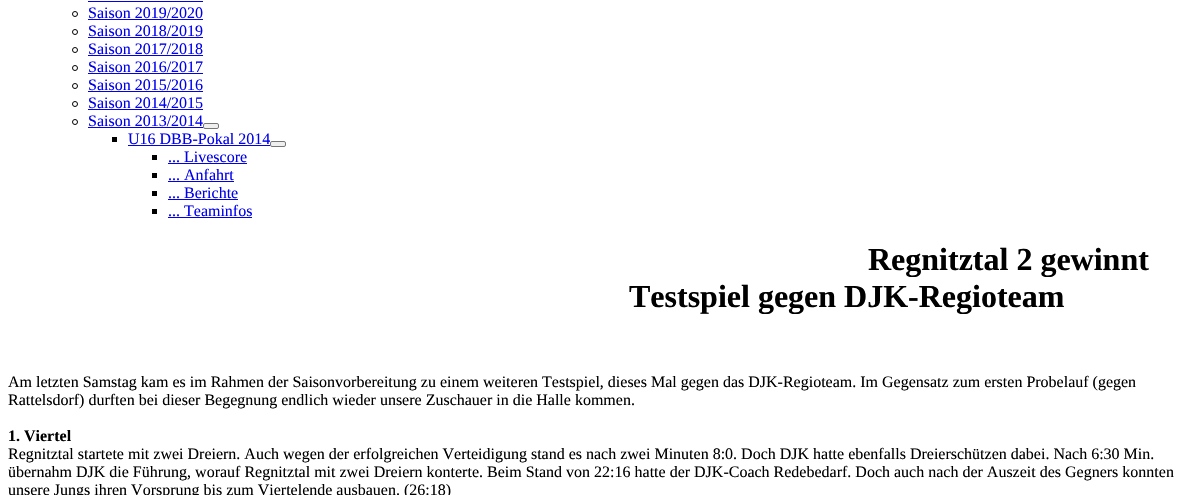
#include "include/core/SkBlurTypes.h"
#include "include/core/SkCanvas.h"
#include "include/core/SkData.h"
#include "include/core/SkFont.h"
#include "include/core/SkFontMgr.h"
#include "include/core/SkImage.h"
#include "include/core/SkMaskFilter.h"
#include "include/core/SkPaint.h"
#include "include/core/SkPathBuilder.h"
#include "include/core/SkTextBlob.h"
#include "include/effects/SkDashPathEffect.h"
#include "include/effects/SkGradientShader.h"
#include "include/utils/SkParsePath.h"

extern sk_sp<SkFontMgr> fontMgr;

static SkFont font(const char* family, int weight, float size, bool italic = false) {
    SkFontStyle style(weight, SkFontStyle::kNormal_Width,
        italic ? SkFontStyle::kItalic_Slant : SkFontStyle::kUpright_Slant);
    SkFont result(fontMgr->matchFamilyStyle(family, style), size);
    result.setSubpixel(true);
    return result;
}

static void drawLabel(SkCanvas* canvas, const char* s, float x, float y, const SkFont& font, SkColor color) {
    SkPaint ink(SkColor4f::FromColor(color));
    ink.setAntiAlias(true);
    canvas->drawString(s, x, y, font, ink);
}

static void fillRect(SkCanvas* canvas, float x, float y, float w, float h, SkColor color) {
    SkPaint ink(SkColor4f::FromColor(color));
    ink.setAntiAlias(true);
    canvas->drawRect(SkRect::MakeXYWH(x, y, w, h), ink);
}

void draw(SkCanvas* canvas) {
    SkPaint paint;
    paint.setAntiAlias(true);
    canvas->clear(0xFFFFFFFF);
    fillRect(canvas, 88, 1, 115, 1, 0xFF0000EE);
    paint.setStroke(true);
    paint.setStrokeWidth(1);
    paint.setColor(0xFF000000);
    canvas->drawCircle(75, 14, 2.5f, paint);
    SkFont font1 = font("Liberation Serif", 400, 16);
    drawLabel(canvas, "Saison 2019/2020", 88, 18, font1, 0xFF0000EE);
    fillRect(canvas, 88, 19, 115, 1, 0xFF0000EE);
    canvas->drawCircle(75, 32, 2.5f, paint);
    drawLabel(canvas, "Saison 2018/2019", 88, 36, font1, 0xFF0000EE);
    fillRect(canvas, 88, 37, 115, 1, 0xFF0000EE);
    canvas->drawCircle(75, 50, 2.5f, paint);
    drawLabel(canvas, "Saison 2017/2018", 88, 54, font1, 0xFF0000EE);
    fillRect(canvas, 88, 55, 115, 1, 0xFF0000EE);
    canvas->drawCircle(75, 68, 2.5f, paint);
    drawLabel(canvas, "Saison 2016/2017", 88, 72, font1, 0xFF0000EE);
    fillRect(canvas, 88, 73, 115, 1, 0xFF0000EE);
    canvas->drawCircle(75, 86, 2.5f, paint);
    drawLabel(canvas, "Saison 2015/2016", 88, 90, font1, 0xFF0000EE);
    fillRect(canvas, 88, 91, 115, 1, 0xFF0000EE);
    canvas->drawCircle(75, 104, 2.5f, paint);
    drawLabel(canvas, "Saison 2014/2015", 88, 108, font1, 0xFF0000EE);
    fillRect(canvas, 88, 109, 115, 1, 0xFF0000EE);
    canvas->drawCircle(75, 122, 2.5f, paint);
    drawLabel(canvas, "Saison 2013/2014", 88, 126, font1, 0xFF0000EE);
    fillRect(canvas, 88, 127, 115, 1, 0xFF0000EE);
    paint.setStroke(false);
    paint.setColor(0xFFEFEFEF);
    canvas->drawRoundRect(SkRect::MakeXYWH(203.5f, 123.5f, 15, 5), 1.5f, 1.5f, paint);
    paint.setStroke(true);
    paint.setColor(0xFF767676);
    canvas->drawRoundRect(SkRect::MakeXYWH(203.5f, 123.5f, 15, 5), 1.5f, 1.5f, paint);
    fillRect(canvas, 112, 137, 5, 5, 0xFF000000);
    drawLabel(canvas, "U16 DBB-Pokal 2014", 128, 144, font1, 0xFF0000EE);
    fillRect(canvas, 128, 145, 142, 1, 0xFF0000EE);
    paint.setStroke(false);
    paint.setColor(0xFFEFEFEF);
    canvas->drawRoundRect(SkRect::MakeXYWH(270.5f, 141.5f, 15, 5), 1.5f, 1.5f, paint);
    paint.setStroke(true);
    paint.setColor(0xFF767676);
    canvas->drawRoundRect(SkRect::MakeXYWH(270.5f, 141.5f, 15, 5), 1.5f, 1.5f, paint);
    fillRect(canvas, 152, 155, 5, 5, 0xFF000000);
    drawLabel(canvas, "... Livescore", 168, 162, font1, 0xFF0000EE);
    fillRect(canvas, 168, 163, 79, 1, 0xFF0000EE);
    fillRect(canvas, 152, 173, 5, 5, 0xFF000000);
    drawLabel(canvas, "... Anfahrt", 168, 180, font1, 0xFF0000EE);
    fillRect(canvas, 168, 181, 66, 1, 0xFF0000EE);
    fillRect(canvas, 152, 191, 5, 5, 0xFF000000);
    drawLabel(canvas, "... Berichte", 168, 198, font1, 0xFF0000EE);
    fillRect(canvas, 168, 199, 70, 1, 0xFF0000EE);
    fillRect(canvas, 152, 209, 5, 5, 0xFF000000);
    drawLabel(canvas, "... Teaminfos", 168, 216, font1, 0xFF0000EE);
    fillRect(canvas, 168, 217, 84, 1, 0xFF0000EE);
    SkFont font2 = font("Liberation Serif", 700, 32);
    drawLabel(canvas, "Regnitztal 2 gewinnt", 868, 270, font2, 0xFF000000);
    drawLabel(canvas, "Testspiel gegen DJK-Regioteam", 629, 307, font2, 0xFF000000);
    drawLabel(canvas, "Am letzten Samstag kam es im Rahmen der Saisonvorbereitung zu einem weiteren Testspiel, dieses Mal gegen das DJK-Regioteam. Im Gegensatz zum ersten Probelauf (gegen", 8, 387, font1, 0xFF000000);
    drawLabel(canvas, "Rattelsdorf) durften bei dieser Begegnung endlich wieder unsere Zuschauer in die Halle kommen.", 8, 405, font1, 0xFF000000);
    SkFont font3 = font("Liberation Serif", 700, 16);
    drawLabel(canvas, "1. Viertel", 8, 441, font3, 0xFF000000);
    drawLabel(canvas, "Regnitztal startete mit zwei Dreiern. Auch wegen der erfolgreichen Verteidigung stand es nach zwei Minuten 8:0. Doch DJK hatte ebenfalls Dreierschützen dabei. Nach 6:30 Min.", 8, 459, font1, 0xFF000000);
    drawLabel(canvas, "übernahm DJK die Führung, worauf Regnitztal mit zwei Dreiern konterte. Beim Stand von 22:16 hatte der DJK-Coach Redebedarf. Doch auch nach der Auszeit des Gegners konnten", 8, 477, font1, 0xFF000000);
    drawLabel(canvas, "unsere Jungs ihren Vorsprung bis zum Viertelende ausbauen. (26:18)", 8, 495, font1, 0xFF000000);
}
